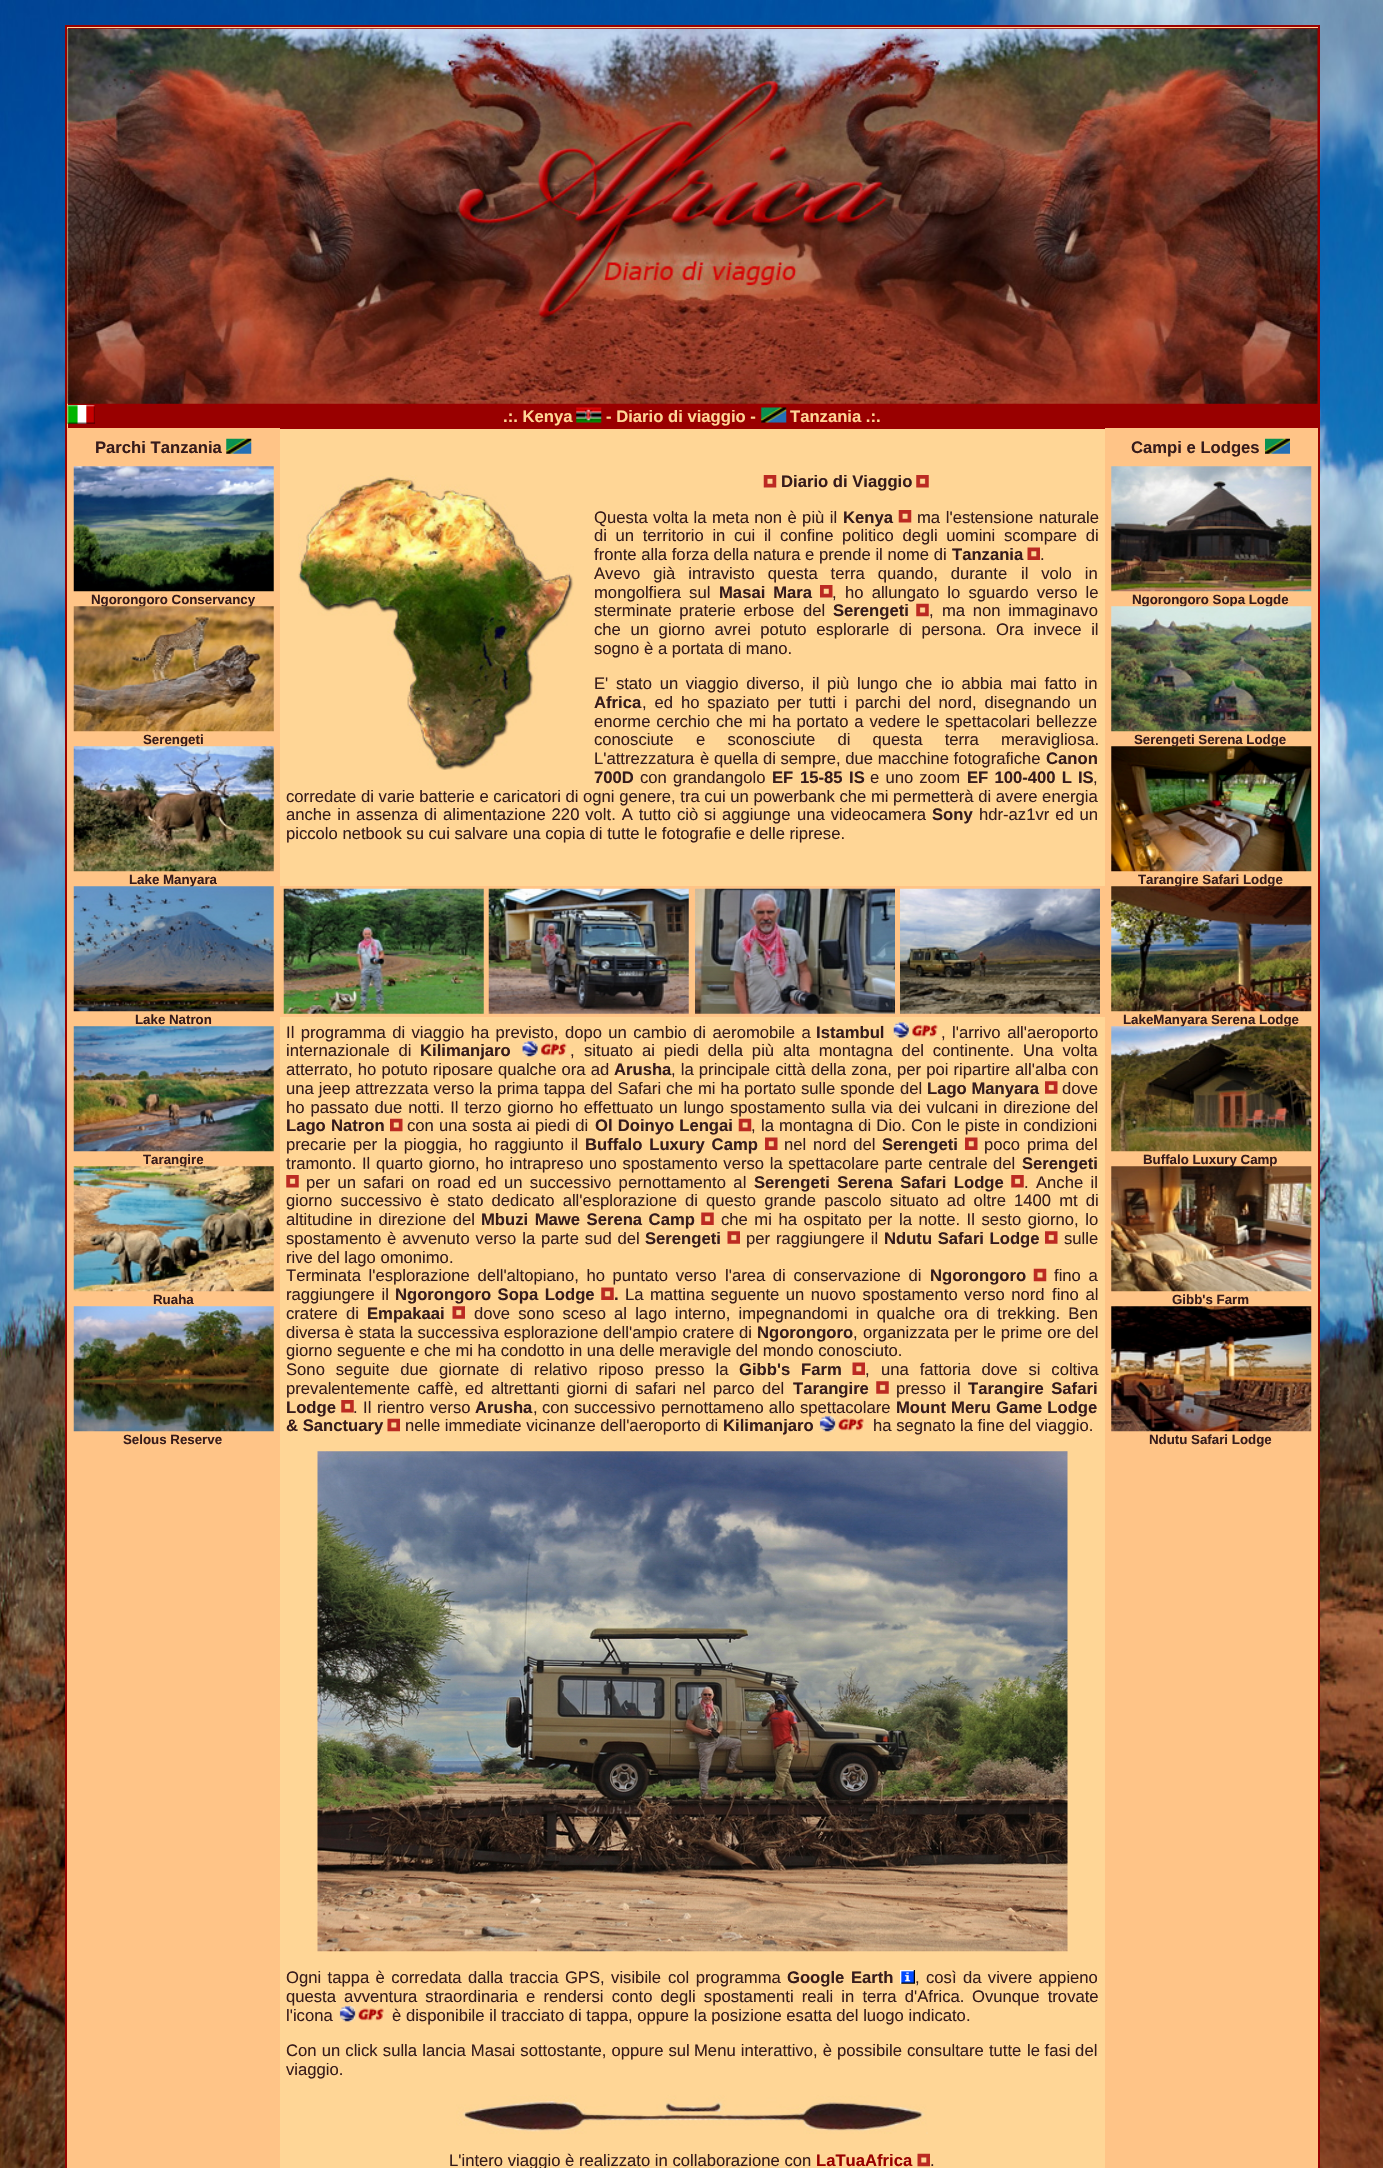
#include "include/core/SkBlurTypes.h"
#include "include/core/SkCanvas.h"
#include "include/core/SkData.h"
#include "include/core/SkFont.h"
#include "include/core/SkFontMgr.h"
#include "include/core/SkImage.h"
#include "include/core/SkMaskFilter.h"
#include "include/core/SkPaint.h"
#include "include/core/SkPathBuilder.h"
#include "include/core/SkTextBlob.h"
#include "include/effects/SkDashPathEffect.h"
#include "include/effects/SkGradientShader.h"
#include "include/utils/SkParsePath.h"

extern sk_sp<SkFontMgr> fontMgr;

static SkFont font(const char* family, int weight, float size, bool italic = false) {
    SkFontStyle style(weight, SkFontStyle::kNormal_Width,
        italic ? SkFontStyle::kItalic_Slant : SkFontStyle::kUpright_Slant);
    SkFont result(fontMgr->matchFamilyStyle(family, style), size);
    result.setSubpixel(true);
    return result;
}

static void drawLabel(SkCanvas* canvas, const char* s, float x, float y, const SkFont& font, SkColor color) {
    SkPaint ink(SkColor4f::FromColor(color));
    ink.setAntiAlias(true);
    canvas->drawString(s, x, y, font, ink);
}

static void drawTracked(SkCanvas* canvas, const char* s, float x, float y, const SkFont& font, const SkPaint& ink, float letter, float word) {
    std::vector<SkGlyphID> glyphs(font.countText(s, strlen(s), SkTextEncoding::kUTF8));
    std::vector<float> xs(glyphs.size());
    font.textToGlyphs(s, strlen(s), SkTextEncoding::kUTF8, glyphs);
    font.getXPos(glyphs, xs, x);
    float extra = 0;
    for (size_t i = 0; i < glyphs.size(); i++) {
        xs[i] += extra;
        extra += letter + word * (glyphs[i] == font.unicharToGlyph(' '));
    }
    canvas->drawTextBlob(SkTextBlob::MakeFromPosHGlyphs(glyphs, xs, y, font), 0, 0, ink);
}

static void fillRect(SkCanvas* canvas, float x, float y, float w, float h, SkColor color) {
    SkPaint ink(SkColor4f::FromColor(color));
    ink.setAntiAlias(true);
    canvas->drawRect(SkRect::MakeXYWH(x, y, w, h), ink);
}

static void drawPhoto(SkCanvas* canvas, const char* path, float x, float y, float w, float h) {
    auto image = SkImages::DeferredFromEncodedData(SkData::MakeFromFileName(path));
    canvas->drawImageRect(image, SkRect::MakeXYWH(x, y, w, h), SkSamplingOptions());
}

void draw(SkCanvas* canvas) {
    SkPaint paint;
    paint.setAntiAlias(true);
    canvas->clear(0xFFFFFFFF);
    drawPhoto(canvas, "assets/img1.png", 0, 0, 1383, 2168);
    paint.setStroke(true);
    paint.setStrokeWidth(1);
    paint.setColor(0xFF990000);
    canvas->drawRect(SkRect::MakeXYWH(65.5f, 25.5f, 1254, 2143), paint);
    paint.setStroke(false);
    paint.setColor(0xFFFFD696);
    canvas->drawRect(SkRect::MakeXYWH(66.5f, 26.5f, 1252, 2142), paint);
    paint.setStroke(true);
    paint.setColor(0xFF990000);
    canvas->drawRect(SkRect::MakeXYWH(66.5f, 26.5f, 1252, 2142), paint);
    fillRect(canvas, 68, 28, 1250, 401, 0xFF990000);
    drawPhoto(canvas, "assets/img2.png", 67, 28, 1251, 376);
    drawPhoto(canvas, "assets/img3.png", 67, 405, 28, 19);
    SkFont font1 = font("Liberation Sans", 700, 16.65f);
    drawLabel(canvas, ".:. Kenya", 503, 422, font1, 0xFFFFD696);
    drawPhoto(canvas, "assets/img4.png", 576, 407, 26, 16);
    drawLabel(canvas, "- Diario di viaggio -", 606, 422, font1, 0xFFFFD696);
    drawPhoto(canvas, "assets/img5.png", 761, 407, 26, 16);
    drawLabel(canvas, "Tanzania .:.", 790, 422, font1, 0xFFFFD696);
    fillRect(canvas, 67, 428, 213, 1740, 0xFFFFC487);
    drawLabel(canvas, "Parchi Tanzania", 95, 453, font1, 0xFF361B1B);
    drawPhoto(canvas, "assets/img6.png", 226, 438, 26, 16);
    drawPhoto(canvas, "assets/img7.png", 73, 466, 201, 126);
    SkFont font2 = font("Liberation Sans", 700, 13.3f);
    drawLabel(canvas, "Ngorongoro Conservancy", 91, 604, font2, 0xFF361B1B);
    drawPhoto(canvas, "assets/img8.png", 73, 606, 201, 126);
    drawLabel(canvas, "Serengeti", 143, 744, font2, 0xFF361B1B);
    drawPhoto(canvas, "assets/img9.png", 73, 746, 201, 126);
    drawLabel(canvas, "Lake Manyara", 129, 884, font2, 0xFF361B1B);
    drawPhoto(canvas, "assets/img10.png", 73, 886, 201, 126);
    drawLabel(canvas, "Lake Natron", 135, 1024, font2, 0xFF361B1B);
    drawPhoto(canvas, "assets/img11.png", 73, 1026, 201, 126);
    drawLabel(canvas, "Tarangire", 143, 1164, font2, 0xFF361B1B);
    drawPhoto(canvas, "assets/img12.png", 73, 1166, 201, 126);
    drawLabel(canvas, "Ruaha", 153, 1304, font2, 0xFF361B1B);
    drawPhoto(canvas, "assets/img13.png", 73, 1306, 201, 126);
    drawLabel(canvas, "Selous Reserve", 123, 1444, font2, 0xFF361B1B);
    drawPhoto(canvas, "assets/img14.png", 298, 475, 276, 295);
    drawPhoto(canvas, "assets/img15.png", 763, 475, 14, 13);
    drawLabel(canvas, "Diario di Viaggio", 781, 487, font1, 0xFF361B1B);
    drawPhoto(canvas, "assets/img16.png", 916, 475, 13, 13);
    SkFont font3 = font("Liberation Sans", 400, 16.65f);
    paint.setStroke(false);
    paint.setColor(0xFF361B1B);
    drawTracked(canvas, "Questa volta la meta non è più il", 594, 523, font3, paint, 0, 0.75f);
    drawLabel(canvas, "Kenya", 843, 523, font1, 0xFF361B1B);
    drawPhoto(canvas, "assets/img17.png", 898, 510, 14, 13);
    drawTracked(canvas, "ma l'estensione naturale", 917, 523, font3, paint, 0, 1);
    drawTracked(canvas, "di un territorio in cui il confine", 594, 541, font3, paint, 0, 4);
    drawTracked(canvas, "politico degli uomini scompare di", 842, 541, font3, paint, 0, 4);
    drawLabel(canvas, "fronte alla forza della natura e prende il nome di", 594, 560, font3, 0xFF361B1B);
    drawLabel(canvas, "Tanzania", 952, 560, font1, 0xFF361B1B);
    drawPhoto(canvas, "assets/img18.png", 1027, 547, 13, 13);
    drawLabel(canvas, ".", 1040, 560, font3, 0xFF361B1B);
    drawTracked(canvas, "Avevo già intravisto questa terra quando, durante", 594, 579, font3, paint, 0, 8.25f);
    drawTracked(canvas, "il volo in", 1021, 579, font3, paint, 0, 8.25f);
    drawTracked(canvas, "mongolfiera sul", 594, 598, font3, paint, 0, 3.5f);
    drawTracked(canvas, "Masai Mara", 719, 598, font1, paint, 0, 3.25f);
    drawPhoto(canvas, "assets/img19.png", 820, 585, 13, 13);
    drawLabel(canvas, ",", 832, 598, font3, 0xFF361B1B);
    drawTracked(canvas, "ho allungato lo sguardo verso le", 845, 598, font3, paint, 0, 3.5f);
    drawTracked(canvas, "sterminate praterie erbose", 594, 616, font3, paint, 0, 3);
    drawLabel(canvas, "del", 803, 616, font3, 0xFF361B1B);
    drawLabel(canvas, "Serengeti", 833, 616, font1, 0xFF361B1B);
    drawPhoto(canvas, "assets/img20.png", 916, 603, 13, 14);
    drawLabel(canvas, ",", 929, 616, font3, 0xFF361B1B);
    drawTracked(canvas, "ma non immaginavo", 942, 616, font3, paint, 0, 3);
    drawTracked(canvas, "che un giorno avrei potuto esplorarle", 594, 635, font3, paint, 0, 5);
    drawTracked(canvas, "di persona. Ora invece il", 899, 635, font3, paint, 0, 5);
    drawLabel(canvas, "sogno è a portata di mano.", 594, 654, font3, 0xFF361B1B);
    drawTracked(canvas, "E' stato un viaggio diverso, il più lungo che", 594, 689, font3, paint, 0, 3);
    drawTracked(canvas, "io abbia mai fatto in", 941, 689, font3, paint, 0, 3);
    drawLabel(canvas, "Africa", 594, 708, font1, 0xFF361B1B);
    drawTracked(canvas, ", ed ho spaziato per", 642, 708, font3, paint, 0, 3.25f);
    drawTracked(canvas, "tutti i parchi del nord, disegnando un", 809, 708, font3, paint, 0, 3.25f);
    drawTracked(canvas, "enorme cerchio", 594, 727, font3, paint, 0, 1.25f);
    drawTracked(canvas, "che mi ha portato a vedere le spettacolari bellezze", 716, 727, font3, paint, 0, 1.25f);
    drawLabel(canvas, "conosciute", 594, 745, font3, 0xFF361B1B);
    drawTracked(canvas, "e sconosciute di questa terra meravigliosa.", 696, 745, font3, paint, 0, 17.5f);
    drawLabel(canvas, "L'attrezzatura", 594, 764, font3, 0xFF361B1B);
    drawLabel(canvas, "è quella di sempre, due macchine fotografiche", 700, 764, font3, 0xFF361B1B);
    drawLabel(canvas, "Canon", 1046, 764, font1, 0xFF361B1B);
    drawLabel(canvas, "700D", 594, 783, font1, 0xFF361B1B);
    drawTracked(canvas, "con grandangolo", 640, 783, font3, paint, 0, 1.5f);
    drawTracked(canvas, "EF 15-85 IS", 772, 783, font1, paint, 0, 2);
    drawTracked(canvas, "e uno zoom", 870, 783, font3, paint, 0, 1.5f);
    drawTracked(canvas, "EF 100-400 L IS", 967, 783, font1, paint, 0, 1.5f);
    drawLabel(canvas, ",", 1093, 783, font3, 0xFF361B1B);
    drawLabel(canvas, "corredate di varie batterie e caricatori di ogni genere, tra cui un powerbank che mi permetterà di avere energia", 286, 802, font3, 0xFF361B1B);
    drawTracked(canvas, "anche in assenza di", 286, 820, font3, paint, 0, 1.25f);
    drawTracked(canvas, "alimentazione 220 volt. A tutto ciò si aggiunge", 443, 820, font3, paint, 0, 1.25f);
    drawTracked(canvas, "una videocamera", 797, 820, font3, paint, 0, 1.25f);
    drawLabel(canvas, "Sony", 932, 820, font1, 0xFF361B1B);
    drawTracked(canvas, "hdr-az1vr ed un", 979, 820, font3, paint, 0, 1.25f);
    drawLabel(canvas, "piccolo netbook su cui salvare una copia di tutte le fotografie e delle riprese.", 286, 839, font3, 0xFF361B1B);
    fillRect(canvas, 280, 886, 825, 131, 0xFFFFC487);
    drawPhoto(canvas, "assets/img21.png", 283, 888, 201, 126);
    drawPhoto(canvas, "assets/img22.png", 488, 888, 201, 126);
    drawPhoto(canvas, "assets/img23.png", 695, 888, 200, 126);
    drawPhoto(canvas, "assets/img24.png", 900, 888, 200, 126);
    drawTracked(canvas, "Il programma di viaggio ha previsto, dopo un cambio", 286, 1038, font3, paint, 0, 1.75f);
    drawTracked(canvas, "di aeromobile a", 693, 1038, font3, paint, 0, 2);
    drawLabel(canvas, "Istambul", 816, 1038, font1, 0xFF361B1B);
    drawPhoto(canvas, "assets/img25.png", 893, 1022, 45, 16);
    drawLabel(canvas, ",", 941, 1038, font3, 0xFF361B1B);
    drawTracked(canvas, "l'arrivo all'aeroporto", 952, 1038, font3, paint, 0, 2);
    drawTracked(canvas, "internazionale di", 286, 1056, font3, paint, 0, 4.25f);
    drawLabel(canvas, "Kilimanjaro", 420, 1056, font1, 0xFF361B1B);
    drawPhoto(canvas, "assets/img26.png", 522, 1041, 45, 16);
    drawLabel(canvas, ",", 570, 1056, font3, 0xFF361B1B);
    drawTracked(canvas, "situato ai piedi della più alta montagna del continente.", 584, 1056, font3, paint, 0, 4.25f);
    drawTracked(canvas, "Una volta", 1023, 1056, font3, paint, 0, 4.25f);
    drawTracked(canvas, "atterrato, ho potuto riposare qualche ora ad", 286, 1075, font3, paint, 0, 0.5f);
    drawLabel(canvas, "Arusha", 614, 1075, font1, 0xFF361B1B);
    drawTracked(canvas, ", la principale città della zona,", 671, 1075, font3, paint, 0, 0.5f);
    drawTracked(canvas, "per poi ripartire all'alba con", 897, 1075, font3, paint, 0, 0.5f);
    drawTracked(canvas, "una jeep attrezzata verso", 286, 1094, font3, paint, 0, 0.4f);
    drawTracked(canvas, "la prima tappa del Safari che mi ha portato sulle sponde", 479, 1094, font3, paint, 0, 0.4f);
    drawLabel(canvas, "del", 900, 1094, font3, 0xFF361B1B);
    drawLabel(canvas, "Lago Manyara", 927, 1094, font1, 0xFF361B1B);
    drawPhoto(canvas, "assets/img27.png", 1045, 1081, 13, 13);
    drawLabel(canvas, "dove", 1062, 1094, font3, 0xFF361B1B);
    drawTracked(canvas, "ho passato due notti. Il terzo giorno ho effettuato", 286, 1113, font3, paint, 0, 1.25f);
    drawTracked(canvas, "un lungo spostamento sulla via dei vulcani in direzione", 659, 1113, font3, paint, 0, 1.25f);
    drawLabel(canvas, "del", 1076, 1113, font3, 0xFF361B1B);
    drawTracked(canvas, "Lago Natron", 286, 1131, font1, paint, 0, 0.5f);
    drawPhoto(canvas, "assets/img28.png", 390, 1118, 13, 14);
    drawTracked(canvas, "con una sosta ai piedi di", 407, 1131, font3, paint, 0, 0.5f);
    drawTracked(canvas, "Ol Doinyo Lengai", 595, 1131, font1, paint, 0, 0.5f);
    drawPhoto(canvas, "assets/img29.png", 738, 1118, 14, 14);
    drawLabel(canvas, ",", 751, 1131, font3, 0xFF361B1B);
    drawTracked(canvas, "la montagna di Dio. Con le piste in condizioni", 761, 1131, font3, paint, 0, 0.5f);
    drawLabel(canvas, "precarie", 286, 1150, font3, 0xFF361B1B);
    drawTracked(canvas, "per la pioggia, ho raggiunto il", 353, 1150, font3, paint, 0, 2.25f);
    drawTracked(canvas, "Buffalo Luxury Camp", 585, 1150, font1, paint, 0, 2.25f);
    drawPhoto(canvas, "assets/img30.png", 765, 1137, 13, 13);
    drawTracked(canvas, "nel nord del", 784, 1150, font3, paint, 0, 2.25f);
    drawLabel(canvas, "Serengeti", 882, 1150, font1, 0xFF361B1B);
    drawPhoto(canvas, "assets/img30.png", 965, 1137, 13, 13);
    drawTracked(canvas, "poco prima del", 984, 1150, font3, paint, 0, 2.25f);
    drawTracked(canvas, "tramonto. Il quarto giorno, ho intrapreso", 286, 1169, font3, paint, 0, 1);
    drawTracked(canvas, "uno spostamento verso la spettacolare parte centrale del", 589, 1169, font3, paint, 0, 1);
    drawLabel(canvas, "Serengeti", 1022, 1169, font1, 0xFF361B1B);
    drawPhoto(canvas, "assets/img16.png", 286, 1175, 13, 13);
    drawTracked(canvas, "per un safari on road ed un successivo pernottamento al", 306, 1188, font3, paint, 0, 2.75f);
    drawTracked(canvas, "Serengeti Serena Safari Lodge", 754, 1188, font1, paint, 0, 2.75f);
    drawPhoto(canvas, "assets/img16.png", 1011, 1175, 13, 13);
    drawLabel(canvas, ".", 1024, 1188, font3, 0xFF361B1B);
    drawTracked(canvas, "Anche il", 1036, 1188, font3, paint, 0, 2.75f);
    drawTracked(canvas, "giorno successivo è stato dedicato all'esplorazione", 286, 1206, font3, paint, 0, 3.5f);
    drawTracked(canvas, "di questo grande pascolo situato ad oltre 1400 mt di", 685, 1206, font3, paint, 0, 3.5f);
    drawLabel(canvas, "altitudine", 286, 1225, font3, 0xFF361B1B);
    drawTracked(canvas, "in direzione del", 359, 1225, font3, paint, 0, 2);
    drawTracked(canvas, "Mbuzi Mawe Serena Camp", 481, 1225, font1, paint, 0, 1.9f);
    drawPhoto(canvas, "assets/img31.png", 701, 1212, 13, 13);
    drawTracked(canvas, "che mi ha ospitato per la notte. Il sesto giorno, lo", 721, 1225, font3, paint, 0, 1.9f);
    drawLabel(canvas, "spostamento", 286, 1244, font3, 0xFF361B1B);
    drawTracked(canvas, "è avvenuto verso la parte sud del", 387, 1244, font3, paint, 0, 1.25f);
    drawLabel(canvas, "Serengeti", 645, 1244, font1, 0xFF361B1B);
    drawPhoto(canvas, "assets/img32.png", 727, 1231, 13, 13);
    drawTracked(canvas, "per raggiungere il", 746, 1244, font3, paint, 0, 1.25f);
    drawTracked(canvas, "Ndutu Safari Lodge", 884, 1244, font1, paint, 0, 1);
    drawPhoto(canvas, "assets/img27.png", 1045, 1231, 13, 13);
    drawLabel(canvas, "sulle", 1064, 1244, font3, 0xFF361B1B);
    drawLabel(canvas, "rive del lago omonimo.", 286, 1263, font3, 0xFF361B1B);
    drawTracked(canvas, "Terminata l'esplorazione dell'altopiano, ho puntato verso", 286, 1281, font3, paint, 0, 3);
    drawTracked(canvas, "l'area di conservazione di", 725, 1281, font3, paint, 0, 3);
    drawLabel(canvas, "Ngorongoro", 930, 1281, font1, 0xFF361B1B);
    drawPhoto(canvas, "assets/img33.png", 1033, 1268, 14, 14);
    drawTracked(canvas, "fino a", 1054, 1281, font3, paint, 0, 3);
    drawTracked(canvas, "raggiungere il", 286, 1300, font3, paint, 0, 2);
    drawTracked(canvas, "Ngorongoro Sopa Lodge", 395, 1300, font1, paint, 0, 1.75f);
    drawPhoto(canvas, "assets/img31.png", 601, 1287, 13, 13);
    drawLabel(canvas, ".", 614, 1300, font1, 0xFF361B1B);
    drawTracked(canvas, "La mattina seguente un nuovo spostamento verso nord", 625, 1300, font3, paint, 0, 1.75f);
    drawTracked(canvas, "fino al", 1052, 1300, font3, paint, 0, 2);
    drawTracked(canvas, "cratere di", 286, 1319, font3, paint, 0, 3.5f);
    drawLabel(canvas, "Empakaai", 367, 1319, font1, 0xFF361B1B);
    drawPhoto(canvas, "assets/img32.png", 452, 1306, 13, 13);
    drawTracked(canvas, "dove sono sceso al lago interno, impegnandomi in qualche", 474, 1319, font3, paint, 0, 3.5f);
    drawTracked(canvas, "ora di trekking. Ben", 944, 1319, font3, paint, 0, 3.5f);
    drawTracked(canvas, "diversa è stata la successiva esplorazione dell'ampio cratere di", 286, 1338, font3, paint, 0, 0.25f);
    drawLabel(canvas, "Ngorongoro", 757, 1338, font1, 0xFF361B1B);
    drawLabel(canvas, ",", 853, 1338, font3, 0xFF361B1B);
    drawTracked(canvas, "organizzata per le prime ore del", 863, 1338, font3, paint, 0, 0.25f);
    drawLabel(canvas, "giorno seguente e che mi ha condotto in una delle meravigle del mondo conosciuto.", 286, 1356, font3, 0xFF361B1B);
    drawTracked(canvas, "Sono seguite due giornate di relativo riposo presso la", 286, 1375, font3, paint, 0, 6.25f);
    drawTracked(canvas, "Gibb's Farm", 739, 1375, font1, paint, 0, 6.25f);
    drawPhoto(canvas, "assets/img18.png", 852, 1362, 13, 13);
    drawLabel(canvas, ",", 865, 1375, font3, 0xFF361B1B);
    drawTracked(canvas, "una fattoria dove si coltiva", 881, 1375, font3, paint, 0, 6.25f);
    drawTracked(canvas, "prevalentemente caffè,", 286, 1394, font3, paint, 0, 2.75f);
    drawTracked(canvas, "ed altrettanti giorni di safari nel parco del", 465, 1394, font3, paint, 0, 2.75f);
    drawLabel(canvas, "Tarangire", 793, 1394, font1, 0xFF361B1B);
    drawPhoto(canvas, "assets/img34.png", 876, 1381, 13, 13);
    drawTracked(canvas, "presso il", 896, 1394, font3, paint, 0, 2.75f);
    drawTracked(canvas, "Tarangire Safari", 968, 1394, font1, paint, 0, 2.75f);
    drawLabel(canvas, "Lodge", 286, 1413, font1, 0xFF361B1B);
    drawPhoto(canvas, "assets/img16.png", 341, 1400, 13, 13);
    drawLabel(canvas, ".", 353, 1413, font3, 0xFF361B1B);
    drawTracked(canvas, "Il rientro verso", 363, 1413, font3, paint, 0, 1);
    drawLabel(canvas, "Arusha", 475, 1413, font1, 0xFF361B1B);
    drawLabel(canvas, ",", 533, 1413, font3, 0xFF361B1B);
    drawTracked(canvas, "con successivo", 542, 1413, font3, paint, 0, 0.5f);
    drawTracked(canvas, "pernottameno allo spettacolare", 661, 1413, font3, paint, 0, 0.5f);
    drawTracked(canvas, "Mount Meru Game Lodge", 896, 1413, font1, paint, 0, 0.5f);
    drawLabel(canvas, "& Sanctuary", 286, 1431, font1, 0xFF361B1B);
    drawPhoto(canvas, "assets/img35.png", 387, 1418, 13, 14);
    drawLabel(canvas, "nelle immediate vicinanze dell'aeroporto di", 405, 1431, font3, 0xFF361B1B);
    drawLabel(canvas, "Kilimanjaro", 723, 1431, font1, 0xFF361B1B);
    drawPhoto(canvas, "assets/img36.png", 819, 1416, 45, 16);
    drawLabel(canvas, "ha segnato la fine del viaggio.", 873, 1431, font3, 0xFF361B1B);
    drawPhoto(canvas, "assets/img37.png", 317, 1451, 751, 501);
    drawTracked(canvas, "Ogni tappa è corredata dalla traccia GPS, visibile", 286, 1983, font3, paint, 0, 1.75f);
    drawTracked(canvas, "col programma", 668, 1983, font3, paint, 0, 1.75f);
    drawTracked(canvas, "Google Earth", 787, 1983, font1, paint, 0, 2);
    drawPhoto(canvas, "assets/img38.png", 900, 1970, 15, 14);
    drawLabel(canvas, ",", 915, 1983, font3, 0xFF361B1B);
    drawTracked(canvas, "così da vivere appieno", 926, 1983, font3, paint, 0, 1.75f);
    drawTracked(canvas, "questa avventura straordinaria", 286, 2002, font3, paint, 0, 3.5f);
    drawTracked(canvas, "e rendersi conto degli spostamenti reali in terra d'Africa.", 526, 2002, font3, paint, 0, 3.5f);
    drawTracked(canvas, "Ovunque trovate", 972, 2002, font3, paint, 0, 3.5f);
    drawLabel(canvas, "l'icona", 286, 2021, font3, 0xFF361B1B);
    drawPhoto(canvas, "assets/img36.png", 339, 2006, 45, 16);
    drawLabel(canvas, "è disponibile il tracciato di tappa, oppure la posizione esatta del luogo indicato.", 392, 2021, font3, 0xFF361B1B);
    drawTracked(canvas, "Con un click sulla lancia Masai sottostante, oppure sul", 286, 2056, font3, paint, 0, 0.5f);
    drawTracked(canvas, "Menu interattivo, è possibile consultare tutte", 694, 2056, font3, paint, 0, 0.5f);
    drawLabel(canvas, "le fasi del", 1027, 2056, font3, 0xFF361B1B);
    drawLabel(canvas, "viaggio.", 286, 2075, font3, 0xFF361B1B);
    drawPhoto(canvas, "assets/img39.png", 456, 2095, 472, 39);
    drawLabel(canvas, "L'intero viaggio è realizzato in collaborazione con", 449, 2166, font3, 0xFF361B1B);
    drawLabel(canvas, "LaTuaAfrica", 816, 2166, font1, 0xFF990000);
    drawPhoto(canvas, "assets/img35.png", 917, 2153, 13, 14);
    drawLabel(canvas, ".", 930, 2166, font3, 0xFF361B1B);
    fillRect(canvas, 1105, 428, 213, 1740, 0xFFFFC487);
    drawLabel(canvas, "Campi e Lodges", 1131, 453, font1, 0xFF361B1B);
    drawPhoto(canvas, "assets/img40.png", 1265, 438, 25, 16);
    drawPhoto(canvas, "assets/img41.png", 1111, 466, 201, 126);
    drawLabel(canvas, "Ngorongoro Sopa Logde", 1132, 604, font2, 0xFF361B1B);
    drawPhoto(canvas, "assets/img42.png", 1111, 606, 201, 126);
    drawLabel(canvas, "Serengeti Serena Lodge", 1134, 744, font2, 0xFF361B1B);
    drawPhoto(canvas, "assets/img43.png", 1111, 746, 201, 126);
    drawLabel(canvas, "Tarangire Safari Lodge", 1138, 884, font2, 0xFF361B1B);
    drawPhoto(canvas, "assets/img44.png", 1111, 886, 201, 126);
    drawLabel(canvas, "LakeManyara Serena Lodge", 1123, 1024, font2, 0xFF361B1B);
    drawPhoto(canvas, "assets/img45.png", 1111, 1026, 201, 126);
    drawLabel(canvas, "Buffalo Luxury Camp", 1143, 1164, font2, 0xFF361B1B);
    drawPhoto(canvas, "assets/img46.png", 1111, 1166, 201, 126);
    drawLabel(canvas, "Gibb's Farm", 1172, 1304, font2, 0xFF361B1B);
    drawPhoto(canvas, "assets/img47.png", 1111, 1306, 201, 126);
    drawLabel(canvas, "Ndutu Safari Lodge", 1149, 1444, font2, 0xFF361B1B);
}
